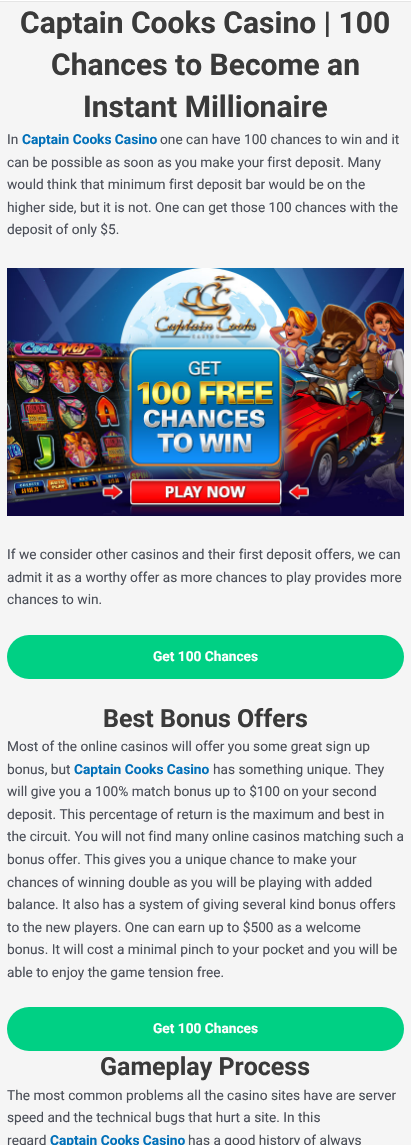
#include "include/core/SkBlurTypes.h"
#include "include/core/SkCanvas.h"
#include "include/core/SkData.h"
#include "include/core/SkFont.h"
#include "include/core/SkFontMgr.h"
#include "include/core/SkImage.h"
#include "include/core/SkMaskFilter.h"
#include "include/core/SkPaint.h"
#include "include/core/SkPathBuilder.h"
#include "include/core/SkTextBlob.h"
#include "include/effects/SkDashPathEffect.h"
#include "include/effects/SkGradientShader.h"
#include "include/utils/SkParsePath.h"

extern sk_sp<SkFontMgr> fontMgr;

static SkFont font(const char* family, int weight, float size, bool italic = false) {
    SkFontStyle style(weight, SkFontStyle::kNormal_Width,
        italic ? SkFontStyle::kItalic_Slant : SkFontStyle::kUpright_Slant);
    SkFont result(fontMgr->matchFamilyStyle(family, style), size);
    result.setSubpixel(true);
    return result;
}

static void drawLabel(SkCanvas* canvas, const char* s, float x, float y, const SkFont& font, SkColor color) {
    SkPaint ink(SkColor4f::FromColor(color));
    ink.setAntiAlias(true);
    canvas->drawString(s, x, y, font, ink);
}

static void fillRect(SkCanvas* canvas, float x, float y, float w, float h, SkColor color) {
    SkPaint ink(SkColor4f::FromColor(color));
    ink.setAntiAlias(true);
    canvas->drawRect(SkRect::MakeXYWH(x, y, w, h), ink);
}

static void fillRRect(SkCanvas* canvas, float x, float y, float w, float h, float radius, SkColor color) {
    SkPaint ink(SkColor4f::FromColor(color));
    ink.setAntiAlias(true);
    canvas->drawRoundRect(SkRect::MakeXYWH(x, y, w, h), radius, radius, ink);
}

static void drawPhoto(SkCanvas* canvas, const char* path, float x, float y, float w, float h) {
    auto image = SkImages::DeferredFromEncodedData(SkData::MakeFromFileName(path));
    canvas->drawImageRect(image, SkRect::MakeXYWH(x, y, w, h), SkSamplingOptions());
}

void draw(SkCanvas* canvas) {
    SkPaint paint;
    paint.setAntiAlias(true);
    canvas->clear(0xFFF5F5F5);
    fillRect(canvas, 0, 0, 411, 1, 0xFFFFFFFF);
    fillRect(canvas, 0, 1, 411, 1, 0xFFE5E5E5);
    SkFont font1 = font("Roboto", 700, 30);
    drawLabel(canvas, "Captain Cooks Casino | 100", 20, 33, font1, 0xFF3A3A3A);
    drawLabel(canvas, "Chances to Become an", 51, 75, font1, 0xFF3A3A3A);
    drawLabel(canvas, "Instant Millionaire", 83, 117, font1, 0xFF3A3A3A);
    SkFont font2 = font("Roboto", 400, 13.7f);
    drawLabel(canvas, "In", 7, 144, font2, 0xFF4B4F58);
    SkFont font3 = font("Roboto", 700, 13.7f);
    drawLabel(canvas, "Captain Cooks Casino", 22, 144, font3, 0xFF0170B9);
    drawLabel(canvas, "one can have 100 chances to win and it", 160, 144, font2, 0xFF4B4F58);
    drawLabel(canvas, "can be possible as soon as you make your first deposit. Many", 7, 167, font2, 0xFF4B4F58);
    drawLabel(canvas, "would think that minimum first deposit bar would be on the", 7, 189, font2, 0xFF4B4F58);
    drawLabel(canvas, "higher side, but it is not. One can get those 100 chances with the", 7, 212, font2, 0xFF4B4F58);
    drawLabel(canvas, "deposit of only $5.", 7, 234, font2, 0xFF4B4F58);
    drawPhoto(canvas, "assets/img1.png", 7, 268, 397, 248);
    drawLabel(canvas, "If we consider other casinos and their first deposit offers, we can", 7, 559, font2, 0xFF4B4F58);
    drawLabel(canvas, "admit it as a worthy offer as more chances to play provides more", 7, 582, font2, 0xFF4B4F58);
    drawLabel(canvas, "chances to win.", 7, 604, font2, 0xFF4B4F58);
    fillRRect(canvas, 7, 635, 397, 44, 22, 0xFF00D084);
    drawLabel(canvas, "Get 100 Chances", 153, 661, font3, 0xFFFFFFFF);
    SkFont font4 = font("Roboto", 700, 25);
    drawLabel(canvas, "Best Bonus Offers", 103, 727, font4, 0xFF3A3A3A);
    drawLabel(canvas, "Most of the online casinos will offer you some great sign up", 7, 751, font2, 0xFF4B4F58);
    drawLabel(canvas, "bonus, but", 7, 774, font2, 0xFF4B4F58);
    drawLabel(canvas, "Captain Cooks Casino", 74, 774, font3, 0xFF0170B9);
    drawLabel(canvas, "has something unique. They", 213, 774, font2, 0xFF4B4F58);
    drawLabel(canvas, "will give you a 100% match bonus up to $100 on your second", 7, 796, font2, 0xFF4B4F58);
    drawLabel(canvas, "deposit. This percentage of return is the maximum and best in", 7, 819, font2, 0xFF4B4F58);
    drawLabel(canvas, "the circuit. You will not find many online casinos matching such a", 7, 841, font2, 0xFF4B4F58);
    drawLabel(canvas, "bonus offer. This gives you a unique chance to make your", 7, 864, font2, 0xFF4B4F58);
    drawLabel(canvas, "chances of winning double as you will be playing with added", 7, 887, font2, 0xFF4B4F58);
    drawLabel(canvas, "balance. It also has a system of giving several kind bonus offers", 7, 909, font2, 0xFF4B4F58);
    drawLabel(canvas, "to the new players. One can earn up to $500 as a welcome", 7, 932, font2, 0xFF4B4F58);
    drawLabel(canvas, "bonus. It will cost a minimal pinch to your pocket and you will be", 7, 954, font2, 0xFF4B4F58);
    drawLabel(canvas, "able to enjoy the game tension free.", 7, 977, font2, 0xFF4B4F58);
    fillRRect(canvas, 7, 1007, 397, 44, 22, 0xFF00D084);
    drawLabel(canvas, "Get 100 Chances", 153, 1033, font3, 0xFFFFFFFF);
    drawLabel(canvas, "Gameplay Process", 100, 1075, font4, 0xFF3A3A3A);
    drawLabel(canvas, "The most common problems all the casino sites have are server", 7, 1100, font2, 0xFF4B4F58);
    drawLabel(canvas, "speed and the technical bugs that hurt a site. In this", 7, 1122, font2, 0xFF4B4F58);
    drawLabel(canvas, "regard", 7, 1145, font2, 0xFF4B4F58);
    drawLabel(canvas, "Captain Cooks Casino", 50, 1145, font3, 0xFF0170B9);
    drawLabel(canvas, "has a good history of always", 188, 1145, font2, 0xFF4B4F58);
}
